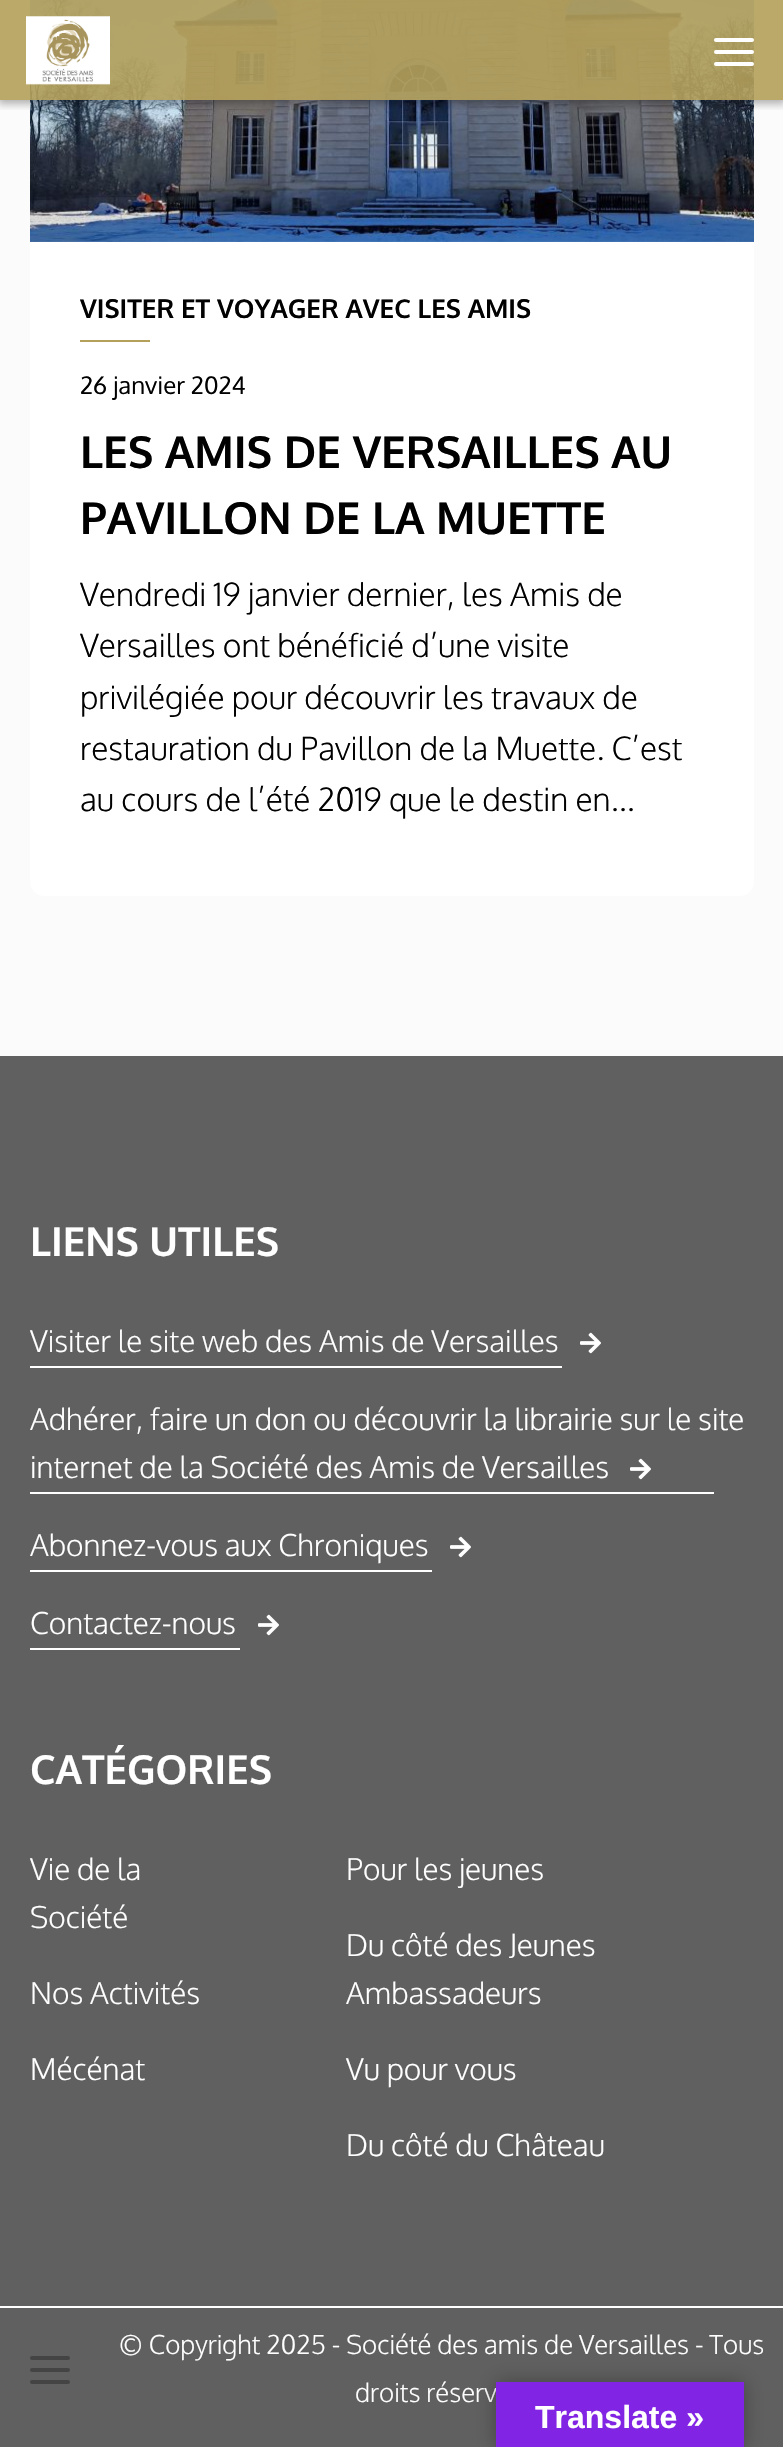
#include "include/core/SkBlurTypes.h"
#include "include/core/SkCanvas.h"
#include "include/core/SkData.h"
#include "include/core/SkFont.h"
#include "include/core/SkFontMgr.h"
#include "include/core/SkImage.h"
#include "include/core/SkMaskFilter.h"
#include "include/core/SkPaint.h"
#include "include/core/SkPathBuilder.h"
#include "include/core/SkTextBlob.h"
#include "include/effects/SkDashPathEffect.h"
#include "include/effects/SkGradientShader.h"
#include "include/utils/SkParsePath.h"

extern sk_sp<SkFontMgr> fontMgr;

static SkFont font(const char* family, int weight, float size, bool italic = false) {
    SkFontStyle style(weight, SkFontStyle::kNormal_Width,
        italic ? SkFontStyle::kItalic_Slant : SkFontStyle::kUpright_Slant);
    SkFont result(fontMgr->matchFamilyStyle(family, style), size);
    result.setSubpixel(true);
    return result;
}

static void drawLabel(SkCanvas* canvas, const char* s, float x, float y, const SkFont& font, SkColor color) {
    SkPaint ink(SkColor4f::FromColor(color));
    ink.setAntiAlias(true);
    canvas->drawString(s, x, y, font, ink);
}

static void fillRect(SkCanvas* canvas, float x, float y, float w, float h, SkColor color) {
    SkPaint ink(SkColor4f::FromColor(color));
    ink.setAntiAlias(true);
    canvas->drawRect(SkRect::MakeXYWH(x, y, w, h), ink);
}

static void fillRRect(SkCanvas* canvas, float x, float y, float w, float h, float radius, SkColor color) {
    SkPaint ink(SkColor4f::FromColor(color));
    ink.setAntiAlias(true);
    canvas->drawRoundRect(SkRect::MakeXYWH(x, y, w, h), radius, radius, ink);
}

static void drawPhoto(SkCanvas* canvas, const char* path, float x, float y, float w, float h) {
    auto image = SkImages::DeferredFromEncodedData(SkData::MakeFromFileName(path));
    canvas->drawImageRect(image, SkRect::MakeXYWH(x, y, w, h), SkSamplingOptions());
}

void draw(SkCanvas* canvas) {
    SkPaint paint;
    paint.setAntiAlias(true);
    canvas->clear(0xFFFBFBFB);
    fillRRect(canvas, 30, -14, 724, 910, 14, 0xFFFFFFFF);
    drawPhoto(canvas, "assets/img2.png", 30, 0, 724, 242);
    canvas->save();
    canvas->clipRect(SkRect::MakeXYWH(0, 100, 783, 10));
    paint.setColor(0x4D000000);
    paint.setMaskFilter(SkMaskFilter::MakeBlur(kNormal_SkBlurStyle, 4));
    canvas->drawRect(SkRect::MakeXYWH(-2, 0, 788, 104), paint);
    paint.setMaskFilter(nullptr);
    canvas->restore();
    fillRect(canvas, 0, 0, 783, 100, 0xE6B4A05A);
    drawPhoto(canvas, "assets/img1.png", 26, 16, 84, 69);
    fillRRect(canvas, 714, 38, 40, 4, 2, 0xFFFFFFFF);
    fillRRect(canvas, 714, 50, 40, 4, 2, 0xFFFFFFFF);
    fillRRect(canvas, 714, 62, 40, 4, 2, 0xFFFFFFFF);
    SkFont font1 = font("Oxygen", 700, 26);
    drawLabel(canvas, "VISITER ET VOYAGER AVEC LES AMIS", 80, 318, font1, 0xFF010101);
    fillRect(canvas, 80, 340, 70, 2, 0xFFB4A05A);
    SkFont font2 = font("Oxygen", 400, 24);
    drawLabel(canvas, "26 janvier 2024", 80, 394, font2, 0xFF010101);
    SkFont font3 = font("Oxygen", 700, 44);
    drawLabel(canvas, "LES AMIS DE VERSAILLES AU", 80, 468, font3, 0xFF010101);
    drawLabel(canvas, "PAVILLON DE LA MUETTE", 80, 534, font3, 0xFF010101);
    SkFont font4 = font("Oxygen", 300, 32);
    drawLabel(canvas, "Vendredi 19 janvier dernier, les Amis de", 80, 606, font4, 0xFF010101);
    drawLabel(canvas, "Versailles ont bénéficié d’une visite", 80, 657, font4, 0xFF010101);
    drawLabel(canvas, "privilégiée pour découvrir les travaux de", 80, 709, font4, 0xFF010101);
    drawLabel(canvas, "restauration du Pavillon de la Muette. C’est", 80, 760, font4, 0xFF010101);
    drawLabel(canvas, "au cours de l’été 2019 que le destin en...", 80, 811, font4, 0xFF010101);
    fillRect(canvas, 0, 1056, 783, 1391, 0xFF606060);
    SkFont font5 = font("Oxygen", 700, 40);
    drawLabel(canvas, "LIENS UTILES", 30, 1256, font5, 0xFFFFFFFF);
    SkFont font6 = font("Oxygen", 300, 30);
    drawLabel(canvas, "Visiter le site web des Amis de Versailles", 30, 1352, font6, 0xFFFFFFFF);
    drawPhoto(canvas, "assets/img3.png", 580, 1332, 21, 22);
    fillRect(canvas, 30, 1366, 532, 2, 0xFFFFFFFF);
    drawLabel(canvas, "Adhérer, faire un don ou découvrir la librairie sur le site", 30, 1430, font6, 0xFFFFFFFF);
    drawLabel(canvas, "internet de la Société des Amis de Versailles", 30, 1478, font6, 0xFFFFFFFF);
    drawPhoto(canvas, "assets/img3.png", 630, 1458, 21, 22);
    fillRect(canvas, 30, 1492, 684, 2, 0xFFFFFFFF);
    drawLabel(canvas, "Abonnez-vous aux Chroniques", 30, 1556, font6, 0xFFFFFFFF);
    drawPhoto(canvas, "assets/img3.png", 450, 1536, 21, 22);
    fillRect(canvas, 30, 1570, 402, 2, 0xFFFFFFFF);
    drawLabel(canvas, "Contactez-nous", 30, 1634, font6, 0xFFFFFFFF);
    drawPhoto(canvas, "assets/img3.png", 258, 1614, 21, 22);
    fillRect(canvas, 30, 1648, 210, 2, 0xFFFFFFFF);
    drawLabel(canvas, "CATÉGORIES", 30, 1784, font5, 0xFFFFFFFF);
    drawLabel(canvas, "Vie de la", 30, 1880, font6, 0xFFFFFFFF);
    drawLabel(canvas, "Société", 30, 1928, font6, 0xFFFFFFFF);
    drawLabel(canvas, "Nos Activités", 30, 2004, font6, 0xFFFFFFFF);
    drawLabel(canvas, "Mécénat", 30, 2080, font6, 0xFFFFFFFF);
    drawLabel(canvas, "Pour les jeunes", 346, 1880, font6, 0xFFFFFFFF);
    drawLabel(canvas, "Du côté des Jeunes", 346, 1956, font6, 0xFFFFFFFF);
    drawLabel(canvas, "Ambassadeurs", 346, 2004, font6, 0xFFFFFFFF);
    drawLabel(canvas, "Vu pour vous", 346, 2080, font6, 0xFFFFFFFF);
    drawLabel(canvas, "Du côté du Château", 346, 2156, font6, 0xFFFFFFFF);
    fillRect(canvas, 0, 2306, 783, 2, 0xFFFFFFFF);
    fillRRect(canvas, 30, 2356, 40, 4, 2, 0xFF444444);
    fillRRect(canvas, 30, 2368, 40, 4, 2, 0xFF444444);
    fillRRect(canvas, 30, 2380, 40, 4, 2, 0xFF444444);
    SkFont font7 = font("Oxygen", 300, 26);
    drawLabel(canvas, "© Copyright 2025 - Société des amis de Versailles - Tous", 119, 2354, font7, 0xFFFFFFFF);
    drawLabel(canvas, "droits réserv", 355, 2402, font7, 0xFFFFFFFF);
    paint.setMaskFilter(SkMaskFilter::MakeBlur(kNormal_SkBlurStyle, 9));
    canvas->drawRect(SkRect::MakeXYWH(496, 2382, 248, 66), paint);
    paint.setMaskFilter(nullptr);
    fillRect(canvas, 496, 2382, 248, 65, 0xFF8224E3);
    SkFont font8 = font("Liberation Sans", 700, 32);
    drawLabel(canvas, "Translate »", 535, 2428, font8, 0xFFFFFFFF);
}
